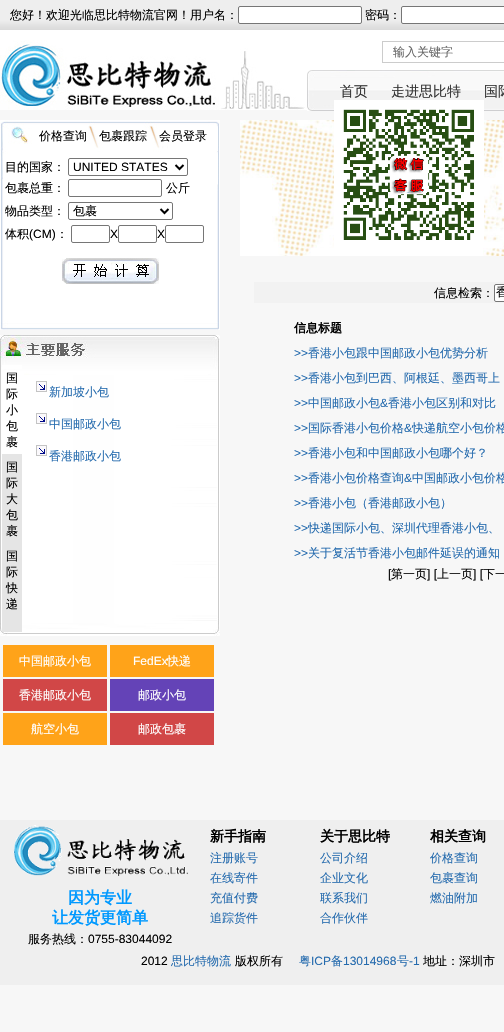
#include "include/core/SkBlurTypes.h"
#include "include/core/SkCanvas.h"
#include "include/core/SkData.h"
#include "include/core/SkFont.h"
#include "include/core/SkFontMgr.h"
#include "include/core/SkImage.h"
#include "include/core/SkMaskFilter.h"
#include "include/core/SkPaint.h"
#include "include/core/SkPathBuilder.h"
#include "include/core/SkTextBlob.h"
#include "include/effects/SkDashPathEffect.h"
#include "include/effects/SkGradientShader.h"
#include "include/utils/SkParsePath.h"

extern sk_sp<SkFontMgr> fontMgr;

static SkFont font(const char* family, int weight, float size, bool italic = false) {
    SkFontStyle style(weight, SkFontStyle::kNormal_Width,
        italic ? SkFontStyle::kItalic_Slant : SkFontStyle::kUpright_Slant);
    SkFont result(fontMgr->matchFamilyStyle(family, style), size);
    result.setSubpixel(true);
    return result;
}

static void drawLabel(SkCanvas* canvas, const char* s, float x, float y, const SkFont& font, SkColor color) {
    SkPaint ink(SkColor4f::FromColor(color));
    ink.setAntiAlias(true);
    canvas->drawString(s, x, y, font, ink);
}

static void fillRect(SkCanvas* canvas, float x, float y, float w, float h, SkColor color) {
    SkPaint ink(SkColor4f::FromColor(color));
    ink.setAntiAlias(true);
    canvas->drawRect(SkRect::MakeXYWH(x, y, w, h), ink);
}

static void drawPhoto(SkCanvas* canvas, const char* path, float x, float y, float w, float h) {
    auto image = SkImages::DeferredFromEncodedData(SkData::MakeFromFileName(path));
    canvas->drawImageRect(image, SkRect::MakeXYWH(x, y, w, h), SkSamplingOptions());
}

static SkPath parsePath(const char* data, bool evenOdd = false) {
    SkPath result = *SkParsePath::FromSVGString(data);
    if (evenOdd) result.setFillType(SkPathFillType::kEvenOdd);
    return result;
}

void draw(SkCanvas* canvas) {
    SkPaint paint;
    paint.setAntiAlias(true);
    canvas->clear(0xFFF7F7F7);
    drawPhoto(canvas, "assets/img1.png", 0, 0, 504, 30);
    SkFont font1 = font("WenQuanYi Zen Hei", 500, 12);
    drawLabel(canvas, "您好！欢迎光临思比特物流官网！用户名：", 10, 19, font1, 0xFF000000);
    paint.setColor(0xFFFFFFFF);
    canvas->drawRoundRect(SkRect::MakeXYWH(238.5f, 6.5f, 123, 17), 1.5f, 1.5f, paint);
    paint.setStroke(true);
    paint.setStrokeWidth(1);
    paint.setColor(0xFF767676);
    canvas->drawRoundRect(SkRect::MakeXYWH(238.5f, 6.5f, 123, 17), 1.5f, 1.5f, paint);
    drawLabel(canvas, "密码：", 365, 19, font1, 0xFF000000);
    paint.setStroke(false);
    paint.setColor(0xFFFFFFFF);
    canvas->drawRoundRect(SkRect::MakeXYWH(401.5f, 6.5f, 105, 17), 1.5f, 1.5f, paint);
    paint.setStroke(true);
    paint.setColor(0xFF767676);
    canvas->drawRoundRect(SkRect::MakeXYWH(401.5f, 6.5f, 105, 17), 1.5f, 1.5f, paint);
    fillRect(canvas, 0, 30, 504, 80, 0xFFFFFFFF);
    drawPhoto(canvas, "assets/img2.png", 0, 40, 305, 70);
    paint.setColor(0xFFCCCCCC);
    canvas->drawRect(SkRect::MakeXYWH(382.5f, 41.5f, 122, 21), paint);
    drawLabel(canvas, "输入关键字", 393, 56, font1, 0xFF666666);
    drawPhoto(canvas, "assets/img3.png", 307, 70, 197, 41);
    SkFont font2 = font("WenQuanYi Zen Hei", 500, 14);
    drawLabel(canvas, "首页", 340, 96, font2, 0xFF333333);
    drawLabel(canvas, "走进思比特", 391, 96, font2, 0xFF333333);
    drawLabel(canvas, "国际", 484, 96, font2, 0xFF333333);
    drawPhoto(canvas, "assets/img4.png", 0, 120, 220, 210);
    drawLabel(canvas, "价格查询", 39, 140, font1, 0xFF000000);
    drawLabel(canvas, "包裹跟踪", 99, 140, font1, 0xFF000000);
    drawLabel(canvas, "会员登录", 159, 140, font1, 0xFF000000);
    drawLabel(canvas, "目的国家：", 5, 171, font1, 0xFF000000);
    paint.setColor(0xFF767676);
    canvas->drawRoundRect(SkRect::MakeXYWH(68.5f, 158.5f, 119, 17), 1.5f, 1.5f, paint);
    paint.setStrokeWidth(2);
    paint.setColor(0xFF000000);
    canvas->drawPath(parsePath("M175.5 165L179.5 169L183.5 165"), paint);
    SkFont font3 = font("Liberation Sans", 400, 12);
    drawLabel(canvas, "UNITED STATES", 73, 171, font3, 0xFF000000);
    drawLabel(canvas, "包裹总重：", 5, 192, font1, 0xFF000000);
    paint.setStrokeWidth(1);
    paint.setColor(0xFF767676);
    canvas->drawRoundRect(SkRect::MakeXYWH(68.5f, 179.5f, 93, 17), 1.5f, 1.5f, paint);
    drawLabel(canvas, "公斤", 166, 192, font1, 0xFF000000);
    drawLabel(canvas, "物品类型：", 5, 215, font1, 0xFF000000);
    canvas->drawRoundRect(SkRect::MakeXYWH(68.5f, 202.5f, 104, 17), 1.5f, 1.5f, paint);
    paint.setStrokeWidth(2);
    paint.setColor(0xFF000000);
    canvas->drawPath(parsePath("M160.5 209L164.5 213L168.5 209"), paint);
    drawLabel(canvas, "包裹", 73, 215, font1, 0xFF000000);
    drawLabel(canvas, "体积", 5, 238, font1, 0xFF000000);
    drawLabel(canvas, "(CM)", 29, 238, font3, 0xFF000000);
    drawLabel(canvas, "：", 56, 238, font1, 0xFF000000);
    paint.setStrokeWidth(1);
    paint.setColor(0xFF767676);
    canvas->drawRoundRect(SkRect::MakeXYWH(71.5f, 225.5f, 38, 17), 1.5f, 1.5f, paint);
    drawLabel(canvas, "X", 110, 238, font3, 0xFF000000);
    canvas->drawRoundRect(SkRect::MakeXYWH(118.5f, 225.5f, 38, 17), 1.5f, 1.5f, paint);
    drawLabel(canvas, "X", 157, 238, font3, 0xFF000000);
    canvas->drawRoundRect(SkRect::MakeXYWH(165.5f, 225.5f, 38, 17), 1.5f, 1.5f, paint);
    drawPhoto(canvas, "assets/img5.png", 62, 258, 97, 26);
    drawPhoto(canvas, "assets/img6.png", 0, 335, 220, 301);
    fillRect(canvas, 2, 365, 20, 4, 0xFFFFFFFF);
    drawLabel(canvas, "国", 6, 382, font1, 0xFF000000);
    drawLabel(canvas, "际", 6, 398, font1, 0xFF000000);
    drawLabel(canvas, "小", 6, 414, font1, 0xFF000000);
    drawLabel(canvas, "包", 6, 430, font1, 0xFF000000);
    drawLabel(canvas, "裹", 6, 446, font1, 0xFF000000);
    fillRect(canvas, 2, 454, 20, 178, 0xFFE5E5E5);
    drawLabel(canvas, "国", 6, 471, font1, 0xFF000000);
    drawLabel(canvas, "际", 6, 487, font1, 0xFF000000);
    drawLabel(canvas, "大", 6, 503, font1, 0xFF000000);
    drawLabel(canvas, "包", 6, 519, font1, 0xFF000000);
    drawLabel(canvas, "裹", 6, 535, font1, 0xFF000000);
    drawLabel(canvas, "国", 6, 560, font1, 0xFF000000);
    drawLabel(canvas, "际", 6, 576, font1, 0xFF000000);
    drawLabel(canvas, "快", 6, 592, font1, 0xFF000000);
    drawLabel(canvas, "递", 6, 608, font1, 0xFF000000);
    drawPhoto(canvas, "assets/img7.png", 36, 381, 11, 11);
    drawLabel(canvas, "新加坡小包", 49, 396, font1, 0xFF256BAE);
    drawPhoto(canvas, "assets/img7.png", 36, 413, 11, 11);
    drawLabel(canvas, "中国邮政小包", 49, 428, font1, 0xFF256BAE);
    drawPhoto(canvas, "assets/img7.png", 36, 445, 11, 11);
    drawLabel(canvas, "香港邮政小包", 49, 460, font1, 0xFF256BAE);
    fillRect(canvas, 3, 645, 104, 32, 0xFFFFA319);
    drawLabel(canvas, "中国邮政小包", 19, 665, font1, 0xFFFFFFFF);
    fillRect(canvas, 110, 645, 104, 32, 0xFFFFA319);
    drawLabel(canvas, "FedEx", 133, 665, font3, 0xFFFFFFFF);
    drawLabel(canvas, "快递", 167, 665, font1, 0xFFFFFFFF);
    fillRect(canvas, 3, 679, 104, 32, 0xFFD14747);
    drawLabel(canvas, "香港邮政小包", 19, 699, font1, 0xFFFFFFFF);
    fillRect(canvas, 110, 679, 104, 32, 0xFF6443B7);
    drawLabel(canvas, "邮政小包", 138, 699, font1, 0xFFFFFFFF);
    fillRect(canvas, 3, 713, 104, 32, 0xFFFFA319);
    drawLabel(canvas, "航空小包", 31, 733, font1, 0xFFFFFFFF);
    fillRect(canvas, 110, 713, 104, 32, 0xFFD14747);
    drawLabel(canvas, "邮政包裹", 138, 733, font1, 0xFFFFFFFF);
    drawPhoto(canvas, "assets/img8.png", 240, 120, 264, 136);
    fillRect(canvas, 254, 282, 250, 21, 0xFFF2F2F2);
    drawLabel(canvas, "信息检索：", 434, 297, font1, 0xFF000000);
    paint.setStroke(false);
    paint.setColor(0xFFFFFFFF);
    canvas->drawRoundRect(SkRect::MakeXYWH(494.5f, 284.5f, 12, 17), 1.5f, 1.5f, paint);
    paint.setStroke(true);
    paint.setColor(0xFF767676);
    canvas->drawRoundRect(SkRect::MakeXYWH(494.5f, 284.5f, 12, 17), 1.5f, 1.5f, paint);
    drawLabel(canvas, "香", 496, 296, font1, 0xFF000000);
    SkFont font4 = font("WenQuanYi Zen Hei", 700, 12);
    drawLabel(canvas, "信息标题", 294, 332, font4, 0xFF000000);
    drawLabel(canvas, ">>", 294, 357, font3, 0xFF256BAE);
    drawLabel(canvas, "香港小包跟中国邮政小包优势分析", 308, 357, font1, 0xFF256BAE);
    drawLabel(canvas, ">>", 294, 382, font3, 0xFF256BAE);
    drawLabel(canvas, "香港小包到巴西、阿根廷、墨西哥上", 308, 382, font1, 0xFF256BAE);
    drawLabel(canvas, ">>", 294, 407, font3, 0xFF256BAE);
    drawLabel(canvas, "中国邮政小包", 308, 407, font1, 0xFF256BAE);
    drawLabel(canvas, "&", 380, 407, font3, 0xFF256BAE);
    drawLabel(canvas, "香港小包区别和对比", 388, 407, font1, 0xFF256BAE);
    drawLabel(canvas, ">>", 294, 432, font3, 0xFF256BAE);
    drawLabel(canvas, "国际香港小包价格", 308, 432, font1, 0xFF256BAE);
    drawLabel(canvas, "&", 404, 432, font3, 0xFF256BAE);
    drawLabel(canvas, "快递航空小包价格", 412, 432, font1, 0xFF256BAE);
    drawLabel(canvas, ">>", 294, 457, font3, 0xFF256BAE);
    drawLabel(canvas, "香港小包和中国邮政小包哪个好？", 308, 457, font1, 0xFF256BAE);
    drawLabel(canvas, ">>", 294, 482, font3, 0xFF256BAE);
    drawLabel(canvas, "香港小包价格查询", 308, 482, font1, 0xFF256BAE);
    drawLabel(canvas, "&", 404, 482, font3, 0xFF256BAE);
    drawLabel(canvas, "中国邮政小包价格", 412, 482, font1, 0xFF256BAE);
    drawLabel(canvas, ">>", 294, 507, font3, 0xFF256BAE);
    drawLabel(canvas, "香港小包（香港邮政小包）", 308, 507, font1, 0xFF256BAE);
    drawLabel(canvas, ">>", 294, 532, font3, 0xFF256BAE);
    drawLabel(canvas, "快递国际小包、深圳代理香港小包、", 308, 532, font1, 0xFF256BAE);
    drawLabel(canvas, ">>", 294, 557, font3, 0xFF256BAE);
    drawLabel(canvas, "关于复活节香港小包邮件延误的通知", 308, 557, font1, 0xFF256BAE);
    drawLabel(canvas, "[", 388, 578, font3, 0xFF000000);
    drawLabel(canvas, "第一页", 391, 578, font1, 0xFF000000);
    drawLabel(canvas, "] [", 427, 578, font3, 0xFF000000);
    drawLabel(canvas, "上一页", 437, 578, font1, 0xFF000000);
    drawLabel(canvas, "] [", 473, 578, font3, 0xFF000000);
    drawLabel(canvas, "下一", 483, 578, font1, 0xFF000000);
    drawPhoto(canvas, "assets/img9.png", 334, 100, 150, 148);
    fillRect(canvas, 0, 820, 504, 165, 0xFFEFEFEF);
    SkFont font5 = font("WenQuanYi Zen Hei", 700, 14);
    drawLabel(canvas, "新手指南", 210, 841, font5, 0xFF000000);
    drawLabel(canvas, "注册账号", 210, 862, font1, 0xFF256BAE);
    drawLabel(canvas, "在线寄件", 210, 882, font1, 0xFF256BAE);
    drawLabel(canvas, "充值付费", 210, 902, font1, 0xFF256BAE);
    drawLabel(canvas, "追踪货件", 210, 922, font1, 0xFF256BAE);
    drawLabel(canvas, "关于思比特", 320, 841, font5, 0xFF000000);
    drawLabel(canvas, "公司介绍", 320, 862, font1, 0xFF256BAE);
    drawLabel(canvas, "企业文化", 320, 882, font1, 0xFF256BAE);
    drawLabel(canvas, "联系我们", 320, 902, font1, 0xFF256BAE);
    drawLabel(canvas, "合作伙伴", 320, 922, font1, 0xFF256BAE);
    drawLabel(canvas, "相关查询", 430, 841, font5, 0xFF000000);
    drawLabel(canvas, "价格查询", 430, 862, font1, 0xFF256BAE);
    drawLabel(canvas, "包裹查询", 430, 882, font1, 0xFF256BAE);
    drawLabel(canvas, "燃油附加", 430, 902, font1, 0xFF256BAE);
    drawPhoto(canvas, "assets/img10.png", 13, 825, 175, 51);
    SkFont font6 = font("WenQuanYi Zen Hei", 700, 16);
    drawLabel(canvas, "因为专业", 68, 903, font6, 0xFF0099FF);
    drawLabel(canvas, "让发货更简单", 52, 923, font6, 0xFF0099FF);
    drawLabel(canvas, "服务热线：", 28, 943, font1, 0xFF000000);
    drawLabel(canvas, "0755-83044092", 88, 943, font3, 0xFF000000);
    drawLabel(canvas, "2012", 141, 965, font3, 0xFF000000);
    drawLabel(canvas, "思比特物流", 171, 965, font1, 0xFF256BAE);
    drawLabel(canvas, "版权所有", 235, 965, font1, 0xFF000000);
    drawLabel(canvas, "粤", 299, 965, font1, 0xFF256BAE);
    drawLabel(canvas, "ICP", 311, 965, font3, 0xFF256BAE);
    drawLabel(canvas, "备", 331, 965, font1, 0xFF256BAE);
    drawLabel(canvas, "13014968", 343, 965, font3, 0xFF256BAE);
    drawLabel(canvas, "号", 397, 965, font1, 0xFF256BAE);
    drawLabel(canvas, "-1", 409, 965, font3, 0xFF256BAE);
    drawLabel(canvas, "地址：深圳市", 423, 965, font1, 0xFF000000);
}
